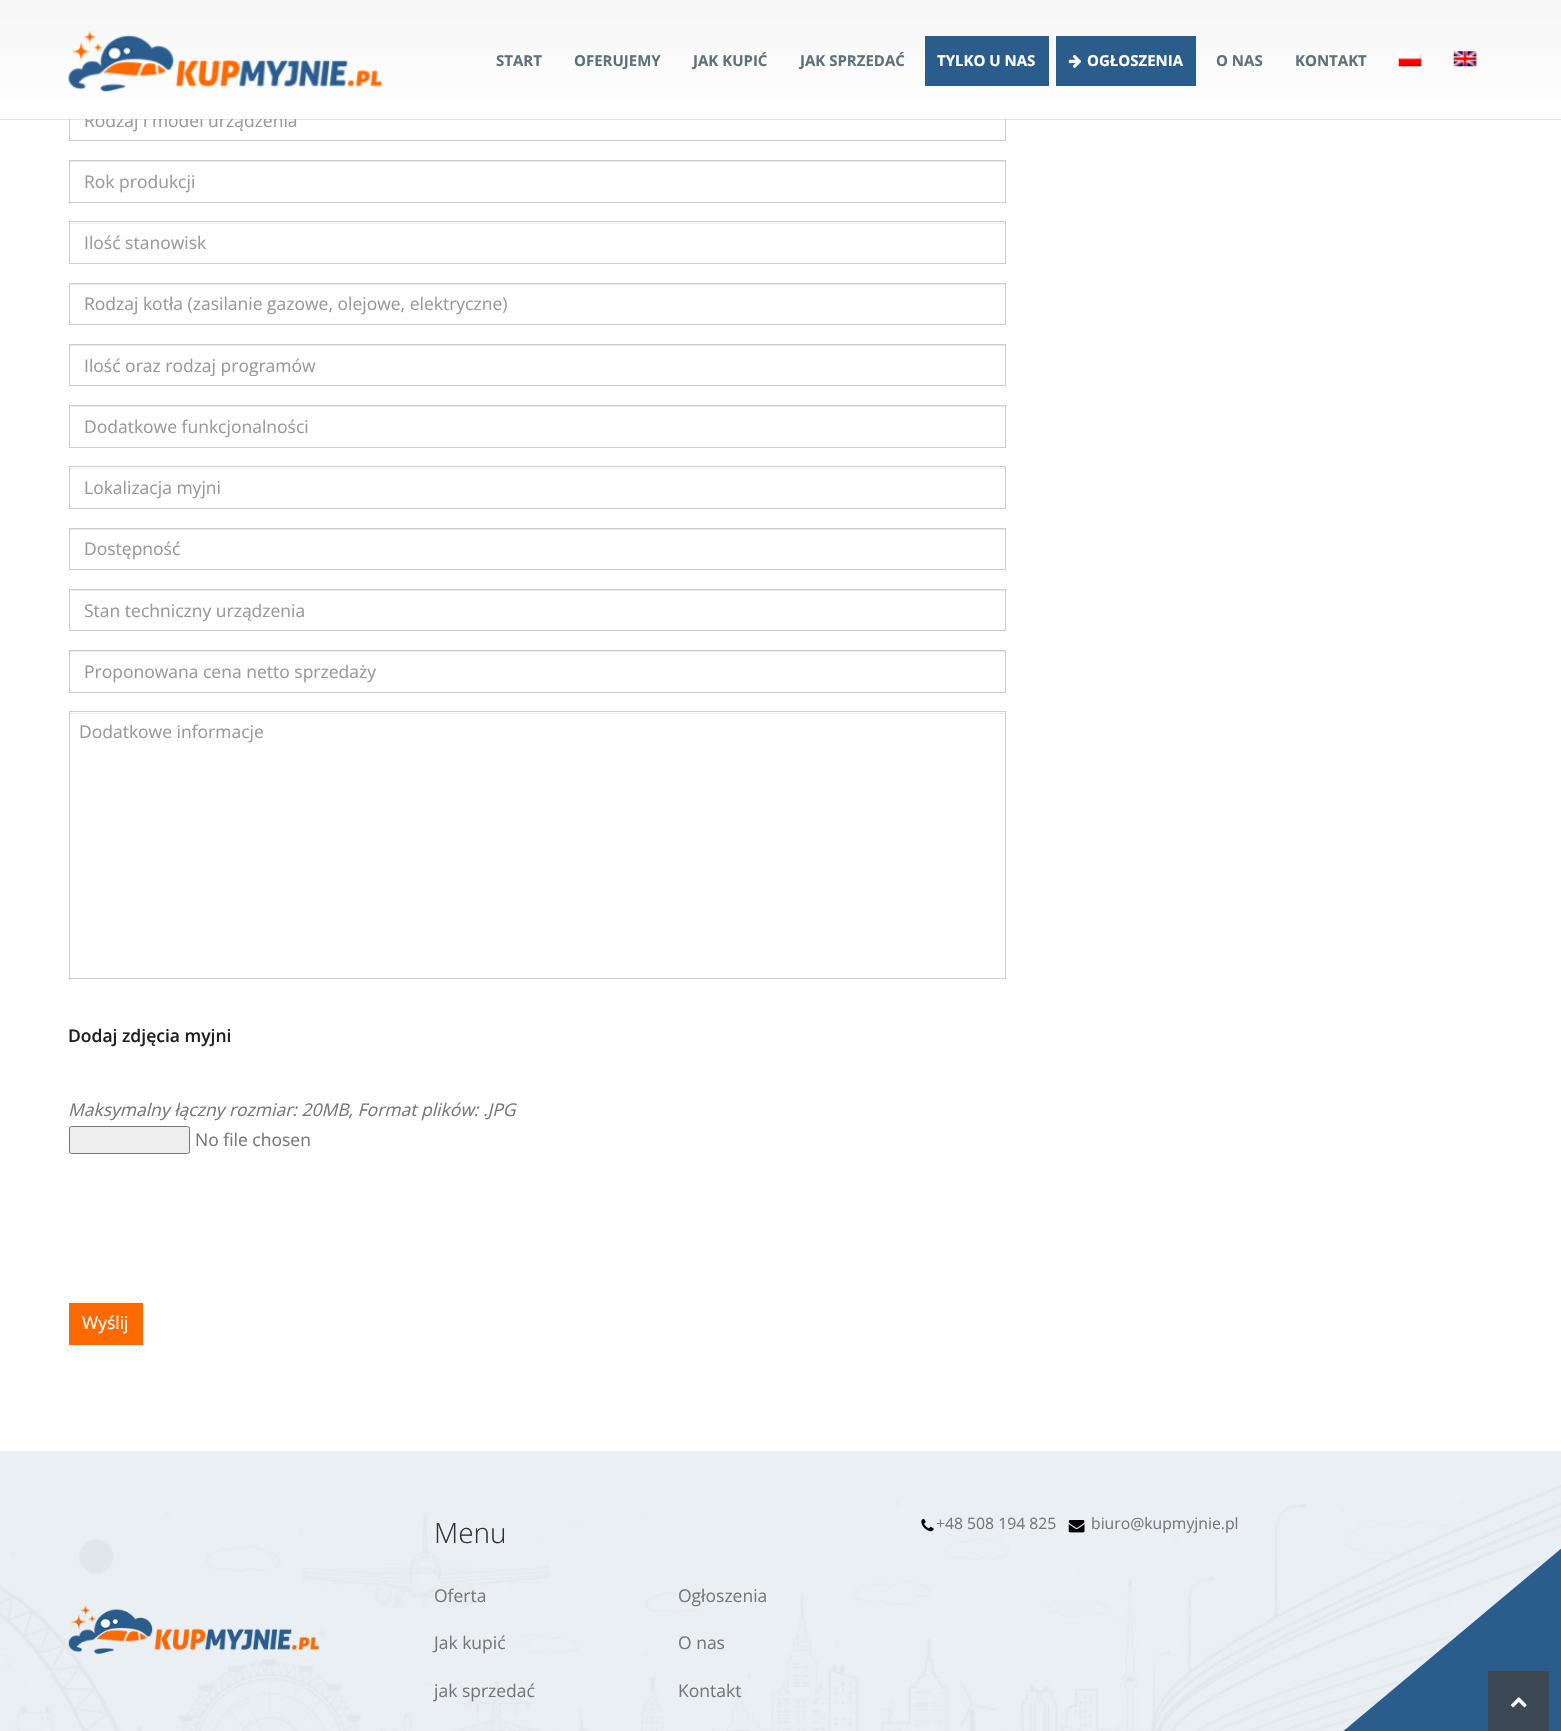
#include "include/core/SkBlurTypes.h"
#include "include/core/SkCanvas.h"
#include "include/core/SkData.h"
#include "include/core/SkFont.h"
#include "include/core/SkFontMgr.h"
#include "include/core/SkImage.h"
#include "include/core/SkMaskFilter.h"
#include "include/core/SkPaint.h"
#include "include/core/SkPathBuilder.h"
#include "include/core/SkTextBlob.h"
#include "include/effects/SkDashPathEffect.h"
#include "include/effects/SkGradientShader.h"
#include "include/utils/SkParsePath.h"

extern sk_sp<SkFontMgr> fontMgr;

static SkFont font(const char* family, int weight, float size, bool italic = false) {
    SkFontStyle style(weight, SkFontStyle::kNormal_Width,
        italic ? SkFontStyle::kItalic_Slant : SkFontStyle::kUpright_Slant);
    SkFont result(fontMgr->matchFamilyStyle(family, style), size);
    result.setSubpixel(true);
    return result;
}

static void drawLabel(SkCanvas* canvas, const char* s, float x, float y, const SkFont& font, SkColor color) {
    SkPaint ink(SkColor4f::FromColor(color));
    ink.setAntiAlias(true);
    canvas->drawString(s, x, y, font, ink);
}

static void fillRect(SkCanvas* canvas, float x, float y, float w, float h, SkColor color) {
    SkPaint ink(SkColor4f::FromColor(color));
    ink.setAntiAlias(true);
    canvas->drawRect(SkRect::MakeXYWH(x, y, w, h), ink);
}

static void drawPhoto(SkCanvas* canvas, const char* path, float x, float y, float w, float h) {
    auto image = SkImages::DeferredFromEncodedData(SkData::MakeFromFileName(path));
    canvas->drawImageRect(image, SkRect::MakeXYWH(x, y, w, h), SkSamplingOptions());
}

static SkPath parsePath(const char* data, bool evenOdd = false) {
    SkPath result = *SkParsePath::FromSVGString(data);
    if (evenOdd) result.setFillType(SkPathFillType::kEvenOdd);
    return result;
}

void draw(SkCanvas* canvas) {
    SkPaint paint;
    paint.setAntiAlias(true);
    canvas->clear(0xFFFFFFFF);
    paint.setStroke(true);
    paint.setStrokeWidth(1);
    paint.setColor(0xFFCCCCCC);
    canvas->drawRect(SkRect::MakeXYWH(69.5f, 99.5f, 936, 41), paint);
    fillRect(canvas, 0, 119, 1561, 1, 0x1A000000);
    SkFont font1 = font("Open Sans", 400, 17.5f);
    drawLabel(canvas, "Rodzaj i model urządzenia", 84, 127, font1, 0xFF999999);
    paint.setStroke(false);
    {
        const SkColor colors[] = {0xFFF6F6F6, 0xFFFFFFFF};
        const float stops[] = {0, 1};
        const SkPoint ends[] = {{781, 0}, {781, 119}};
        paint.setShader(SkGradientShader::MakeLinear(ends, colors, stops, 2, SkTileMode::kClamp));
        paint.setAlpha(255);
    }
    canvas->drawRect(SkRect::MakeXYWH(0, 0, 1561, 119), paint);
    drawPhoto(canvas, "assets/img1.png", 68, 30, 314, 62);
    SkFont font2 = font("Open Sans", 700, 15);
    drawLabel(canvas, "START", 496, 66, font2, 0xFF5E7279);
    drawLabel(canvas, "OFERUJEMY", 574, 66, font2, 0xFF5E7279);
    drawLabel(canvas, "JAK KUPIĆ", 693, 66, font2, 0xFF5E7279);
    drawLabel(canvas, "JAK SPRZEDAĆ", 800, 66, font2, 0xFF5E7279);
    fillRect(canvas, 925, 36, 124, 50, 0xFF2B5D8C);
    drawLabel(canvas, "TYLKO U NAS", 937, 66, font2, 0xFFFFFFFF);
    fillRect(canvas, 1056, 36, 140, 50, 0xFF2B5D8C);
    drawPhoto(canvas, "assets/img2.png", 1068, 54, 14, 14);
    drawLabel(canvas, "OGŁOSZENIA", 1087, 66, font2, 0xFFFFFFFF);
    drawLabel(canvas, "O NAS", 1216, 66, font2, 0xFF5E7279);
    drawLabel(canvas, "KONTAKT", 1295, 66, font2, 0xFF5E7279);
    drawPhoto(canvas, "assets/img3.png", 1398, 52, 24, 15);
    drawPhoto(canvas, "assets/img4.png", 1453, 51, 24, 16);
    fillRect(canvas, 70, 161, 935, 1, 0xFFECECEC);
    paint.setStroke(true);
    paint.setShader(nullptr);
    paint.setColor(0xFFCCCCCC);
    canvas->drawRect(SkRect::MakeXYWH(69.5f, 160.5f, 936, 42), paint);
    drawLabel(canvas, "Rok produkcji", 84, 188, font1, 0xFF999999);
    fillRect(canvas, 70, 223, 935, 1, 0xFFECECEC);
    canvas->drawRect(SkRect::MakeXYWH(69.5f, 221.5f, 936, 42), paint);
    drawLabel(canvas, "Ilość stanowisk", 84, 249, font1, 0xFF999999);
    fillRect(canvas, 70, 284, 935, 1, 0xFFECECEC);
    canvas->drawRect(SkRect::MakeXYWH(69.5f, 283.5f, 936, 41), paint);
    drawLabel(canvas, "Rodzaj kotła (zasilanie gazowe, olejowe, elektryczne)", 84, 310, font1, 0xFF999999);
    fillRect(canvas, 70, 345, 935, 1, 0xFFECECEC);
    canvas->drawRect(SkRect::MakeXYWH(69.5f, 344.5f, 936, 41), paint);
    canvas->save();
    canvas->clipRect(SkRect::MakeXYWH(85, 353, 905, 23));
    drawLabel(canvas, "Ilość oraz rodzaj programów", 84, 372, font1, 0xFF999999);
    canvas->restore();
    fillRect(canvas, 70, 406, 935, 1, 0xFFECECEC);
    canvas->drawRect(SkRect::MakeXYWH(69.5f, 405.5f, 936, 42), paint);
    drawLabel(canvas, "Dodatkowe funkcjonalności", 84, 433, font1, 0xFF999999);
    fillRect(canvas, 70, 468, 935, 1, 0xFFECECEC);
    canvas->drawRect(SkRect::MakeXYWH(69.5f, 466.5f, 936, 42), paint);
    drawLabel(canvas, "Lokalizacja myjni", 84, 494, font1, 0xFF999999);
    fillRect(canvas, 70, 529, 935, 1, 0xFFECECEC);
    canvas->drawRect(SkRect::MakeXYWH(69.5f, 528.5f, 936, 41), paint);
    drawLabel(canvas, "Dostępność", 84, 555, font1, 0xFF999999);
    fillRect(canvas, 70, 590, 935, 1, 0xFFECECEC);
    canvas->drawRect(SkRect::MakeXYWH(69.5f, 589.5f, 936, 41), paint);
    drawLabel(canvas, "Stan techniczny urządzenia", 84, 617, font1, 0xFF999999);
    fillRect(canvas, 70, 651, 935, 1, 0xFFECECEC);
    canvas->drawRect(SkRect::MakeXYWH(69.5f, 650.5f, 936, 42), paint);
    drawLabel(canvas, "Proponowana cena netto sprzedaży", 84, 678, font1, 0xFF999999);
    fillRect(canvas, 70, 713, 935, 1, 0xFFECECEC);
    canvas->drawRect(SkRect::MakeXYWH(69.5f, 711.5f, 936, 267), paint);
    drawLabel(canvas, "Dodatkowe informacje", 79, 738, font1, 0xFF999999);
    SkFont font3 = font("Open Sans", 600, 17.5f);
    drawLabel(canvas, "Dodaj zdjęcia myjni", 68, 1042, font3, 0xFF1D2127);
    SkFont font4 = font("Open Sans", 400, 17.5f, true);
    drawLabel(canvas, "Maksymalny łączny rozmiar: 20MB, Format plików: .JPG", 68, 1116, font4, 0xFF777777);
    paint.setStroke(false);
    paint.setColor(0xFFEFEFEF);
    canvas->drawRoundRect(SkRect::MakeXYWH(69.5f, 1126.5f, 120, 27), 2, 2, paint);
    paint.setStroke(true);
    paint.setColor(0xFF767676);
    canvas->drawRoundRect(SkRect::MakeXYWH(69.5f, 1126.5f, 120, 27), 2, 2, paint);
    drawLabel(canvas, "No file chosen", 195, 1146, font1, 0xFF777777);
    fillRect(canvas, 69, 1303, 74, 42, 0xFFFF6A00);
    drawLabel(canvas, "Wyślij", 82, 1329, font1, 0xFFFFFFFF);
    fillRect(canvas, 0, 1451, 1561, 34, 0xFFE9EFF2);
    drawPhoto(canvas, "assets/img5.png", 0, 1485, 1561, 246);
    drawPhoto(canvas, "assets/img6.png", 68, 1605, 251, 49);
    SkFont font5 = font("Open Sans", 300, 28);
    drawLabel(canvas, "Menu", 434, 1543, font5, 0xFF333333);
    drawLabel(canvas, "Oferta", 434, 1602, font1, 0xFF777777);
    drawLabel(canvas, "Jak kupić", 434, 1649, font1, 0xFF777777);
    drawLabel(canvas, "jak sprzedać", 434, 1697, font1, 0xFF777777);
    drawLabel(canvas, "Ogłoszenia", 678, 1602, font1, 0xFF777777);
    drawLabel(canvas, "O nas", 678, 1649, font1, 0xFF777777);
    drawLabel(canvas, "Kontakt", 678, 1697, font1, 0xFF777777);
    drawPhoto(canvas, "assets/img7.png", 921, 1518, 13, 14);
    SkFont font6 = font("Open Sans", 400, 15.75f);
    drawLabel(canvas, "+48 508 194 825", 936, 1529, font6, 0xFF777777);
    drawPhoto(canvas, "assets/img8.png", 1068, 1520, 17, 13);
    drawLabel(canvas, "biuro@kupmyjnie.pl", 1091, 1529, font6, 0xFF777777);
    paint.setStroke(false);
    paint.setColor(0xFF2B5D8C);
    canvas->drawPath(parsePath("M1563 1547L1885 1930L1502 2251L1180 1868Z"), paint);
    fillRect(canvas, 1488, 1671, 61, 60, 0xFF3B4753);
    drawPhoto(canvas, "assets/img9.png", 1510, 1697, 17, 11);
}
